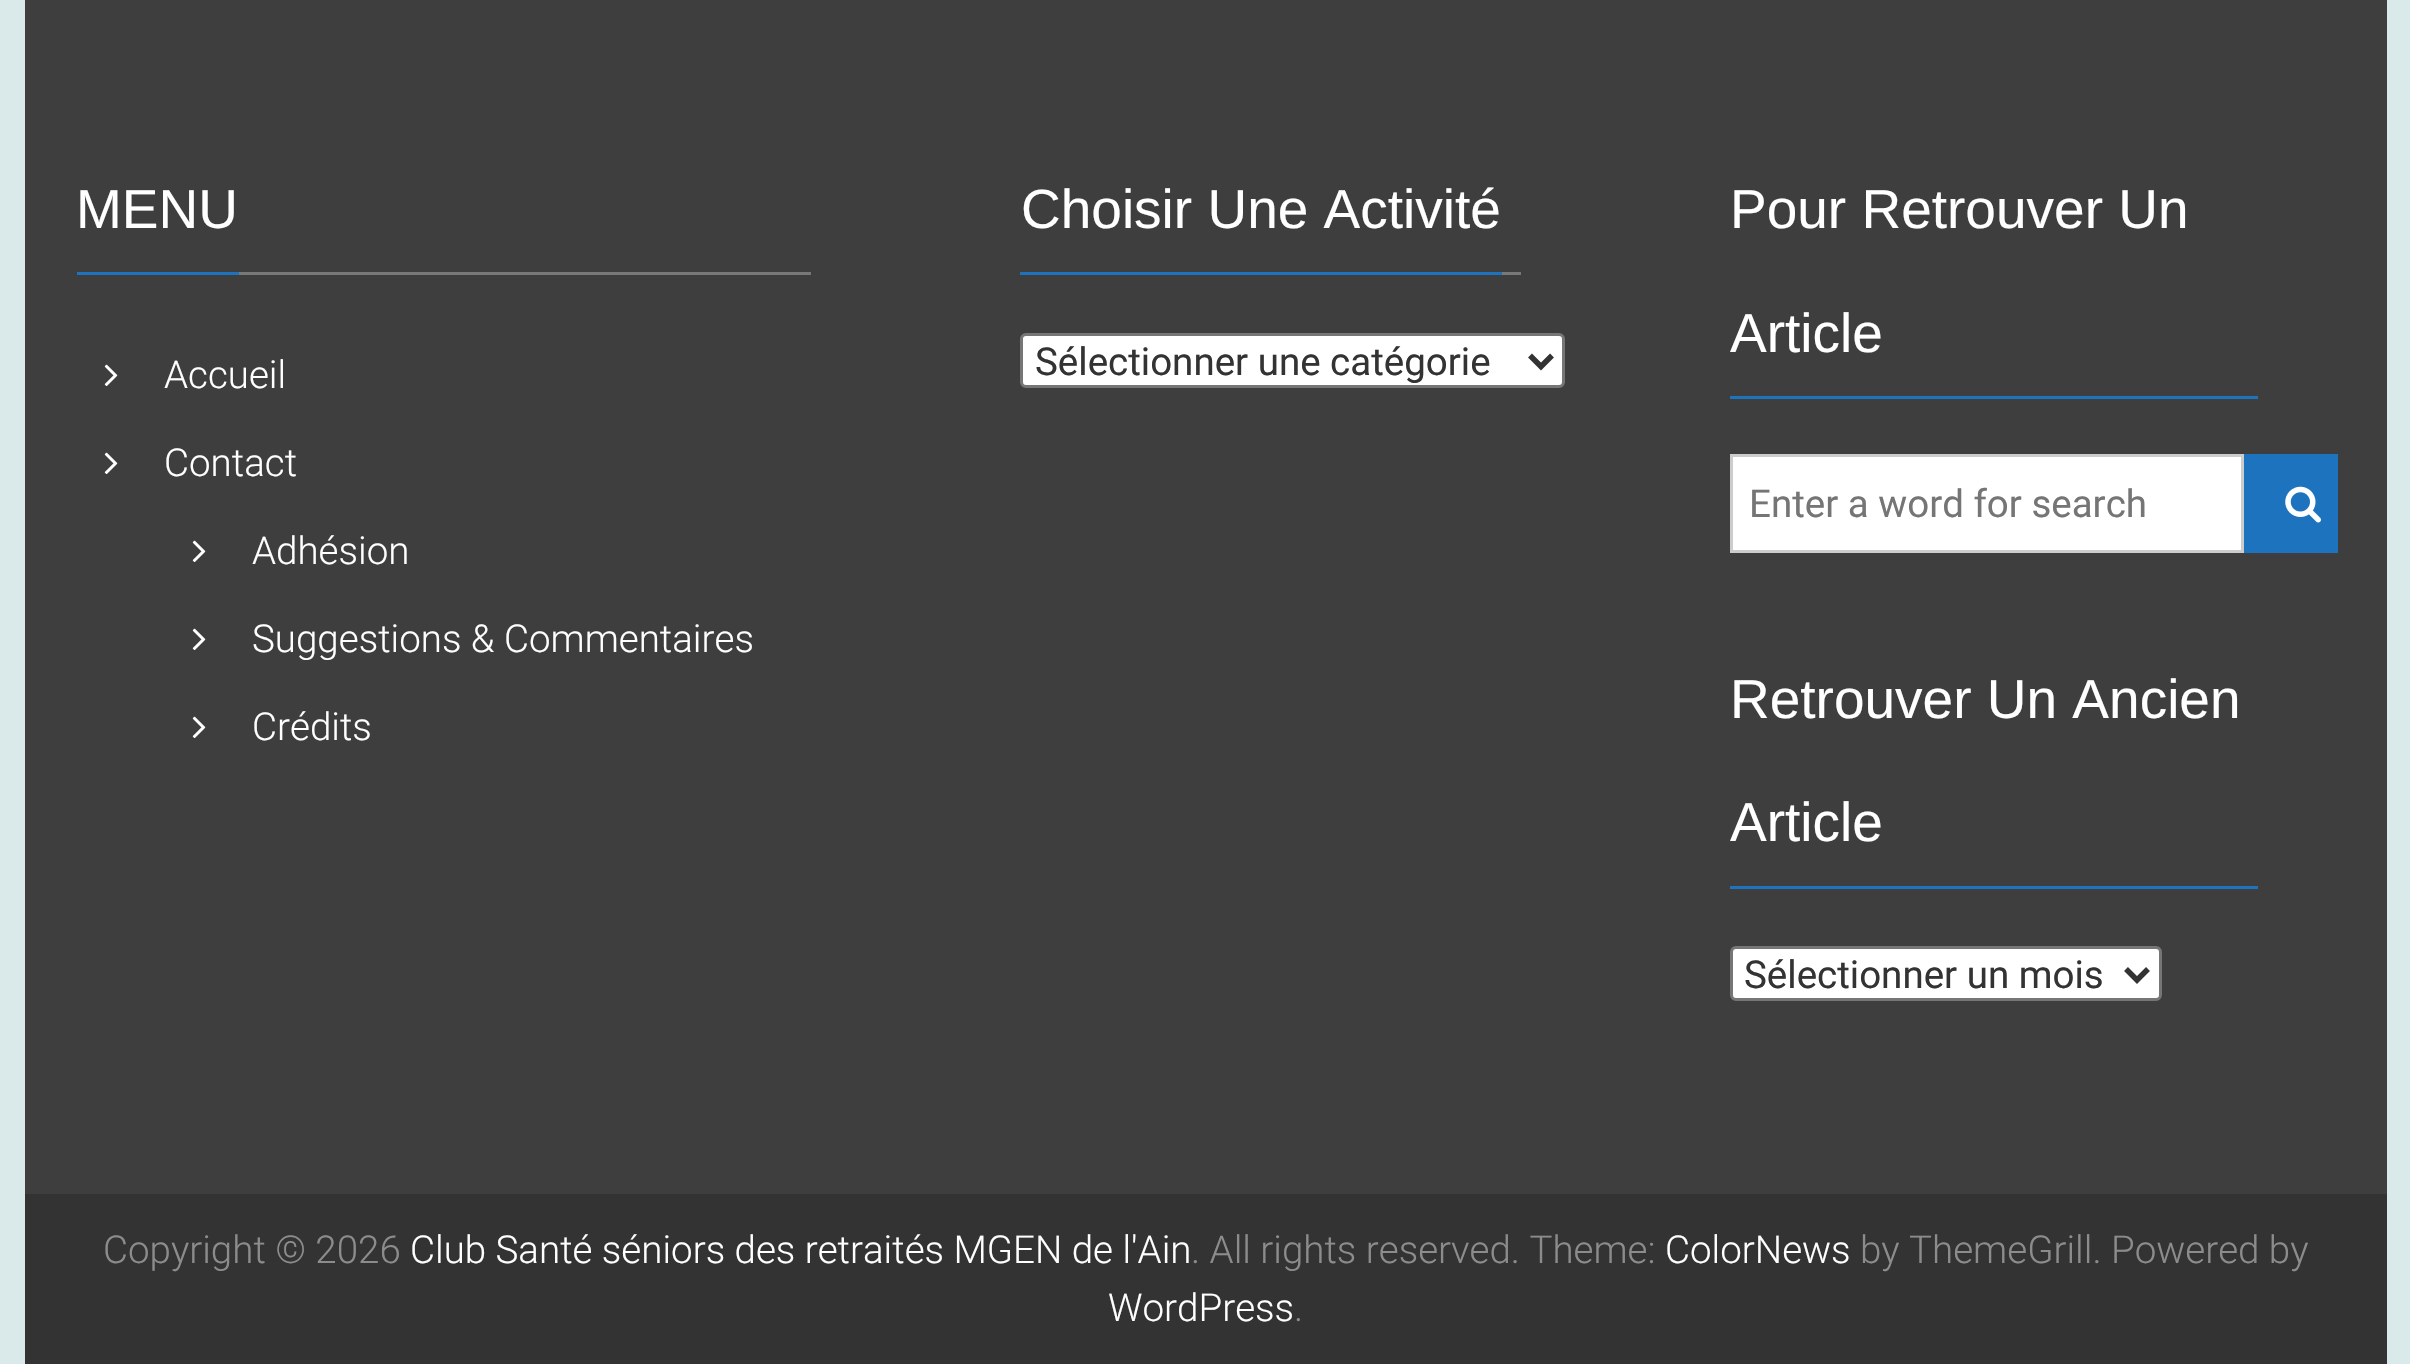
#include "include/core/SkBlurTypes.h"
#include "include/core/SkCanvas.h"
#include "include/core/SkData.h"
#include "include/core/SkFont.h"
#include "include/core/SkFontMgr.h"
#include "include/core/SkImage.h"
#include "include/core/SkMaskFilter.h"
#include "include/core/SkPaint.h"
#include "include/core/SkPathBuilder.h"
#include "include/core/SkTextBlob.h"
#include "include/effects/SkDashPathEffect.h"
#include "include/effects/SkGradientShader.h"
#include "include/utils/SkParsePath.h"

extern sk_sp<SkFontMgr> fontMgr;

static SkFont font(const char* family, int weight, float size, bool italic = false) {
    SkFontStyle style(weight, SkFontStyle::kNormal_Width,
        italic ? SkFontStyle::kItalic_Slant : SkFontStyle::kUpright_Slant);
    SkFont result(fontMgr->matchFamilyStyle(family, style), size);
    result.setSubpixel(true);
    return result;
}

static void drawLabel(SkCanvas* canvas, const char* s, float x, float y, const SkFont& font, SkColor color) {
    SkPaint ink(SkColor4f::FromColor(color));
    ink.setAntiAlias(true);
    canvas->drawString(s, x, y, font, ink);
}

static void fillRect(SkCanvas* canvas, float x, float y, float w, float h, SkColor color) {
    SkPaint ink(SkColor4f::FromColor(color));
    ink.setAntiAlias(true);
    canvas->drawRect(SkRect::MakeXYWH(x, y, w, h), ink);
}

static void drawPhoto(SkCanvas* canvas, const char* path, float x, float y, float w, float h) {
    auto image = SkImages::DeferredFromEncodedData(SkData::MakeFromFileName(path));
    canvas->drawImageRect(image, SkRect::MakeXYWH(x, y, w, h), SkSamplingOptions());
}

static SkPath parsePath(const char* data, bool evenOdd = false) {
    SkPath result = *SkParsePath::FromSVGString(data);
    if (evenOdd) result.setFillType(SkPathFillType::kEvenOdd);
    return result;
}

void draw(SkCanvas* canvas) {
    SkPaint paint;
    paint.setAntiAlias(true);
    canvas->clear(0xFFDAE9EA);
    fillRect(canvas, 25, 0, 2362, 1194, 0xFF3E3E3E);
    fillRect(canvas, 239, 272, 572, 3, 0xFF787878);
    fillRect(canvas, 77, 272, 162, 3, 0xFF1E73BE);
    SkFont font1 = font("Liberation Sans", 400, 55);
    drawLabel(canvas, "MENU", 76, 228, font1, 0xFFFFFFFF);
    drawPhoto(canvas, "assets/img1.png", 104, 364, 14, 22);
    SkFont font2 = font("Roboto", 300, 38.5f);
    drawLabel(canvas, "Accueil", 164, 388, font2, 0xFFFFFFFF);
    drawPhoto(canvas, "assets/img1.png", 104, 452, 14, 22);
    drawLabel(canvas, "Contact", 164, 476, font2, 0xFFFFFFFF);
    drawPhoto(canvas, "assets/img1.png", 192, 540, 14, 22);
    drawLabel(canvas, "Adhésion", 252, 564, font2, 0xFFFFFFFF);
    drawPhoto(canvas, "assets/img1.png", 192, 628, 14, 22);
    drawLabel(canvas, "Suggestions & Commentaires", 252, 652, font2, 0xFFFFFFFF);
    drawPhoto(canvas, "assets/img1.png", 192, 716, 14, 22);
    drawLabel(canvas, "Crédits", 252, 740, font2, 0xFFFFFFFF);
    fillRect(canvas, 1502, 272, 19, 3, 0xFF787878);
    fillRect(canvas, 1020, 272, 482, 3, 0xFF1E73BE);
    drawLabel(canvas, "Choisir Une Activité", 1021, 228, font1, 0xFFFFFFFF);
    paint.setColor(0xFFFFFFFF);
    canvas->drawRoundRect(SkRect::MakeXYWH(1021.5f, 334.5f, 542, 52), 4.5f, 4.5f, paint);
    paint.setStroke(true);
    paint.setStrokeWidth(3);
    paint.setColor(0xFF767676);
    canvas->drawRoundRect(SkRect::MakeXYWH(1021.5f, 334.5f, 542, 52), 4.5f, 4.5f, paint);
    paint.setStrokeWidth(5.5f);
    paint.setColor(0xFF333333);
    canvas->drawPath(parsePath("M1530 355.5L1541 366.5L1552 355.5"), paint);
    SkFont font3 = font("Roboto", 400, 38.5f);
    drawLabel(canvas, "Sélectionner une catégorie", 1035, 375, font3, 0xFF333333);
    fillRect(canvas, 1730, 396, 528, 3, 0xFF1E73BE);
    drawLabel(canvas, "Pour Retrouver Un", 1730, 228, font1, 0xFFFFFFFF);
    drawLabel(canvas, "Article", 1730, 352, font1, 0xFFFFFFFF);
    paint.setStroke(false);
    paint.setColor(0xFFFFFFFF);
    canvas->drawRect(SkRect::MakeXYWH(1731.5f, 455.5f, 511, 96), paint);
    paint.setStroke(true);
    paint.setStrokeWidth(3);
    paint.setColor(0xFFCCCCCC);
    canvas->drawRect(SkRect::MakeXYWH(1731.5f, 455.5f, 511, 96), paint);
    drawLabel(canvas, "Enter a word for search", 1749, 517, font3, 0xFF757575);
    fillRect(canvas, 2244, 454, 94, 99, 0xFF1E73BE);
    drawPhoto(canvas, "assets/img2.png", 2285, 486, 36, 37);
    fillRect(canvas, 1730, 886, 528, 3, 0xFF1E73BE);
    drawLabel(canvas, "Retrouver Un Ancien", 1730, 718, font1, 0xFFFFFFFF);
    drawLabel(canvas, "Article", 1730, 841, font1, 0xFFFFFFFF);
    paint.setStroke(false);
    paint.setColor(0xFFFFFFFF);
    canvas->drawRoundRect(SkRect::MakeXYWH(1731.5f, 947.5f, 429, 52), 4.5f, 4.5f, paint);
    paint.setStroke(true);
    paint.setColor(0xFF767676);
    canvas->drawRoundRect(SkRect::MakeXYWH(1731.5f, 947.5f, 429, 52), 4.5f, 4.5f, paint);
    paint.setStrokeWidth(5.5f);
    paint.setColor(0xFF333333);
    canvas->drawPath(parsePath("M2126 969L2137 980L2148 969"), paint);
    drawLabel(canvas, "Sélectionner un mois", 1744, 988, font3, 0xFF333333);
    fillRect(canvas, 25, 1194, 2362, 170, 0xFF333333);
    drawLabel(canvas, "Copyright © 2026", 103, 1263, font2, 0xFF8C8C8C);
    drawLabel(canvas, "Club Santé séniors des retraités MGEN de l'Ain", 410, 1263, font2, 0xFFFFFFFF);
    drawLabel(canvas, ". All rights reserved. Theme:", 1191, 1263, font2, 0xFF8C8C8C);
    drawLabel(canvas, "ColorNews", 1665, 1263, font2, 0xFFFFFFFF);
    drawLabel(canvas, "by ThemeGrill. Powered by", 1860, 1263, font2, 0xFF8C8C8C);
    drawLabel(canvas, "WordPress", 1108, 1321, font2, 0xFFFFFFFF);
    drawLabel(canvas, ".", 1294, 1321, font2, 0xFF8C8C8C);
}
